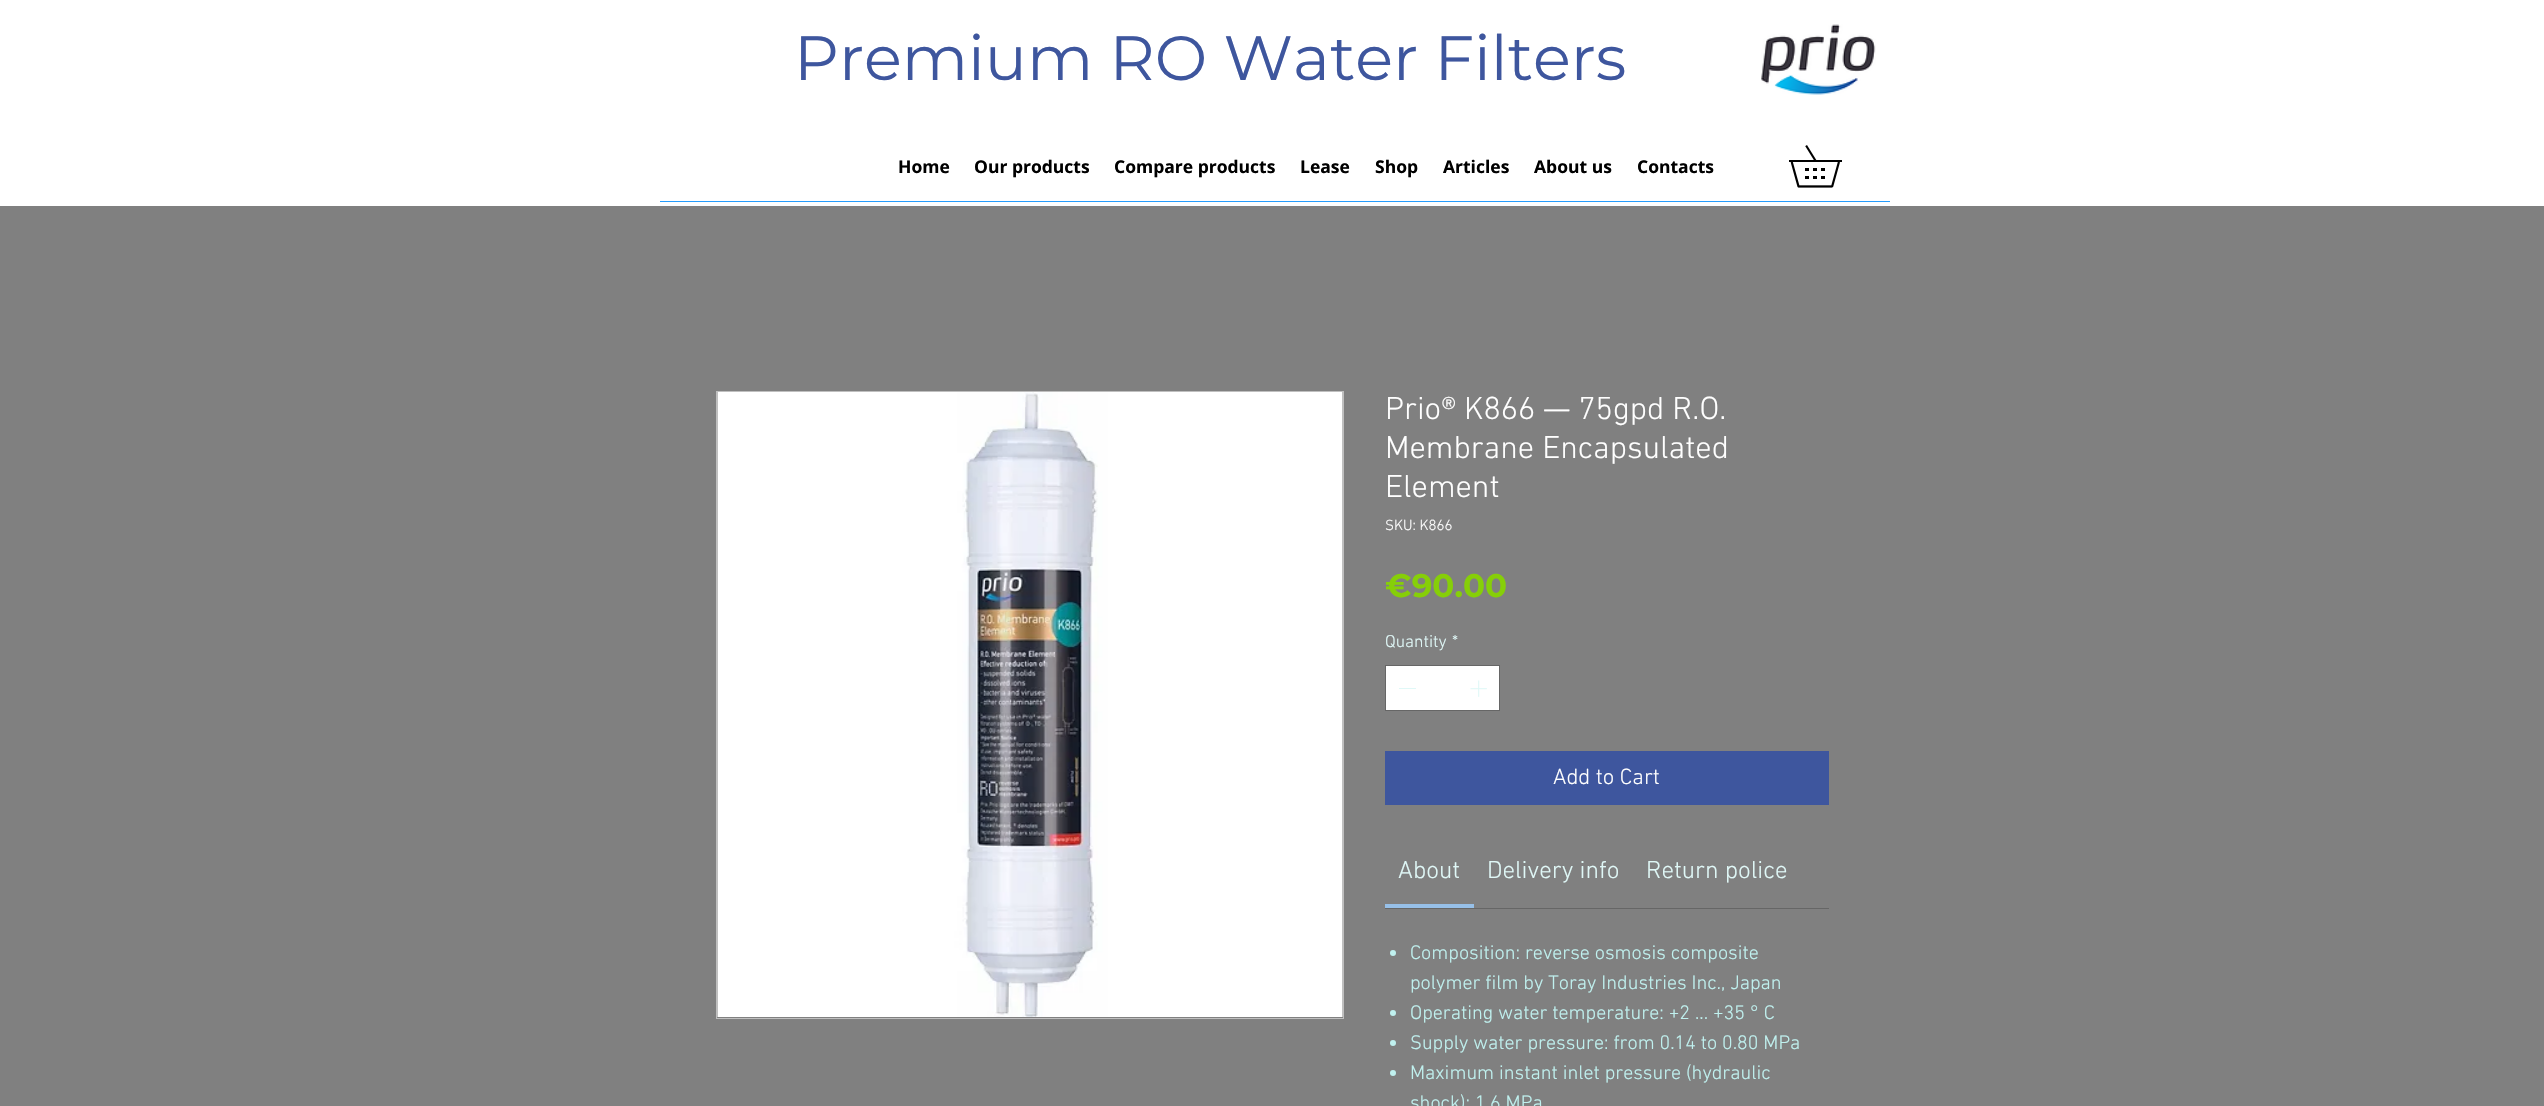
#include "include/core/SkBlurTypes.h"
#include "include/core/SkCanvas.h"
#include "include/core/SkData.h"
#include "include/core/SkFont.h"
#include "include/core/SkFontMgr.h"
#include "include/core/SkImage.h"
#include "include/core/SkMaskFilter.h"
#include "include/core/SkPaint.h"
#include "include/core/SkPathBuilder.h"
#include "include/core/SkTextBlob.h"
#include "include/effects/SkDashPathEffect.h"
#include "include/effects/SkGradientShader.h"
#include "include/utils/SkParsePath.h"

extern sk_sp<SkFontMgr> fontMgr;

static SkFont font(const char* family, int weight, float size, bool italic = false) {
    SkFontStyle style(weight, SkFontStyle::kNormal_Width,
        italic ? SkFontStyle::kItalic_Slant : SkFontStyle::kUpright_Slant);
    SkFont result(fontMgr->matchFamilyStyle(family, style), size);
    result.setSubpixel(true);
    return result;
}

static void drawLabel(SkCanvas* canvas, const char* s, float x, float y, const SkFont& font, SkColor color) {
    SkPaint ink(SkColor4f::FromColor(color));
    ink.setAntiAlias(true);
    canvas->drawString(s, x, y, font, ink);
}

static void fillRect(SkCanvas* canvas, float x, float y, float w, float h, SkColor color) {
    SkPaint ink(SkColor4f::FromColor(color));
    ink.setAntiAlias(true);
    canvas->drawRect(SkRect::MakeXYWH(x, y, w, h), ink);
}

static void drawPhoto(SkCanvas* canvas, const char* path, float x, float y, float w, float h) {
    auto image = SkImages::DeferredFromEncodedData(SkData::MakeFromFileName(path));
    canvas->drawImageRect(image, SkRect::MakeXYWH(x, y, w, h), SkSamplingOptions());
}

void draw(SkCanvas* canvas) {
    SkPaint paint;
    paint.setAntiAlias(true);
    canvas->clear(0xFFFFFFFF);
    SkFont font1 = font("Montserrat", 400, 62.5f);
    drawLabel(canvas, "Premium RO Water Filters", 794, 80, font1, 0xFF3E569E);
    drawPhoto(canvas, "assets/img1.png", 1761, 24, 115, 71);
    SkFont font2 = font("Open Sans", 700, 17.5f);
    drawLabel(canvas, "Home", 898, 173, font2, 0xFF000000);
    drawLabel(canvas, "Our products", 974, 173, font2, 0xFF000000);
    drawLabel(canvas, "Compare products", 1114, 173, font2, 0xFF000000);
    drawLabel(canvas, "Lease", 1300, 173, font2, 0xFF000000);
    drawLabel(canvas, "Shop", 1375, 173, font2, 0xFF000000);
    drawLabel(canvas, "Articles", 1443, 173, font2, 0xFF000000);
    drawLabel(canvas, "About us", 1534, 173, font2, 0xFF000000);
    drawLabel(canvas, "Contacts", 1637, 173, font2, 0xFF000000);
    drawPhoto(canvas, "assets/img2.png", 1789, 145, 53, 43);
    fillRect(canvas, 660, 201, 1230, 1, 0xFF269CFC);
    fillRect(canvas, 0, 206, 2544, 900, 0xFF808080);
    paint.setStroke(true);
    paint.setStrokeWidth(1);
    paint.setColor(0xFFBFBFBF);
    canvas->drawRect(SkRect::MakeXYWH(716.5f, 391.5f, 627, 627), paint);
    drawPhoto(canvas, "assets/img3.png", 717, 392, 626, 625);
    SkFont font3 = font("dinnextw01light", 300, 32.5f);
    drawLabel(canvas, "Prio® K866 — 75gpd R.O.", 1385, 419, font3, 0xFFFFFFFF);
    drawLabel(canvas, "Membrane Encapsulated", 1385, 458, font3, 0xFFFFFFFF);
    drawLabel(canvas, "Element", 1385, 497, font3, 0xFFFFFFFF);
    SkFont font4 = font("dinnextw01light", 300, 15);
    drawLabel(canvas, "SKU: K866", 1385, 530, font4, 0xFFFFFFFF);
    SkFont font5 = font("Montserrat", 700, 32.5f);
    drawLabel(canvas, "€90.00", 1385, 597, font5, 0xFF86CF08);
    SkFont font6 = font("dinnextw01light", 300, 17.5f);
    drawLabel(canvas, "Quantity", 1385, 647, font6, 0xFFE0F8F7);
    drawLabel(canvas, "*", 1452, 647, font6, 0xFFE0F8F7);
    paint.setStroke(false);
    paint.setColor(0xFFFFFFFF);
    canvas->drawRect(SkRect::MakeXYWH(1385.5f, 665.5f, 114, 45), paint);
    paint.setStroke(true);
    paint.setColor(0xFF666666);
    canvas->drawRect(SkRect::MakeXYWH(1385.5f, 665.5f, 114, 45), paint);
    fillRect(canvas, 1399, 688, 17, 1, 0xFFE0F8F7);
    drawPhoto(canvas, "assets/img4.png", 1470, 680, 17, 17);
    fillRect(canvas, 1385, 751, 444, 54, 0xFF3E569E);
    SkFont font7 = font("dinnextw01light", 300, 22.5f);
    drawLabel(canvas, "Add to Cart", 1553, 784, font7, 0xFFFFFFFF);
    fillRect(canvas, 1385, 908, 444, 1, 0xFF666666);
    fillRect(canvas, 1385, 904, 89, 4, 0xFF97C0E8);
    SkFont font8 = font("dinnextw01light", 300, 25);
    drawLabel(canvas, "About", 1398, 878, font8, 0xFFE0F8F7);
    drawLabel(canvas, "Delivery info", 1487, 878, font8, 0xFFE0F8F7);
    drawLabel(canvas, "Return police", 1646, 878, font8, 0xFFE0F8F7);
    paint.setStroke(false);
    paint.setColor(0xFFC0F1EF);
    canvas->drawCircle(1393, 953, 3, paint);
    SkFont font9 = font("dinnextw01light", 300, 20);
    drawLabel(canvas, "Composition: reverse osmosis composite", 1410, 959, font9, 0xFFC0F1EF);
    drawLabel(canvas, "polymer film by Toray Industries Inc., Japan", 1410, 989, font9, 0xFFC0F1EF);
    canvas->drawCircle(1393, 1013, 3, paint);
    drawLabel(canvas, "Operating water temperature: +2 ... +35 ° С", 1410, 1019, font9, 0xFFC0F1EF);
    canvas->drawCircle(1393, 1043, 3, paint);
    drawLabel(canvas, "Supply water pressure: from 0.14 to 0.80 MPa", 1410, 1049, font9, 0xFFC0F1EF);
    canvas->drawCircle(1393, 1073, 3, paint);
    drawLabel(canvas, "Maximum instant inlet pressure (hydraulic", 1410, 1079, font9, 0xFFC0F1EF);
    drawLabel(canvas, "shock): 1.6 MPa", 1410, 1109, font9, 0xFFC0F1EF);
}
